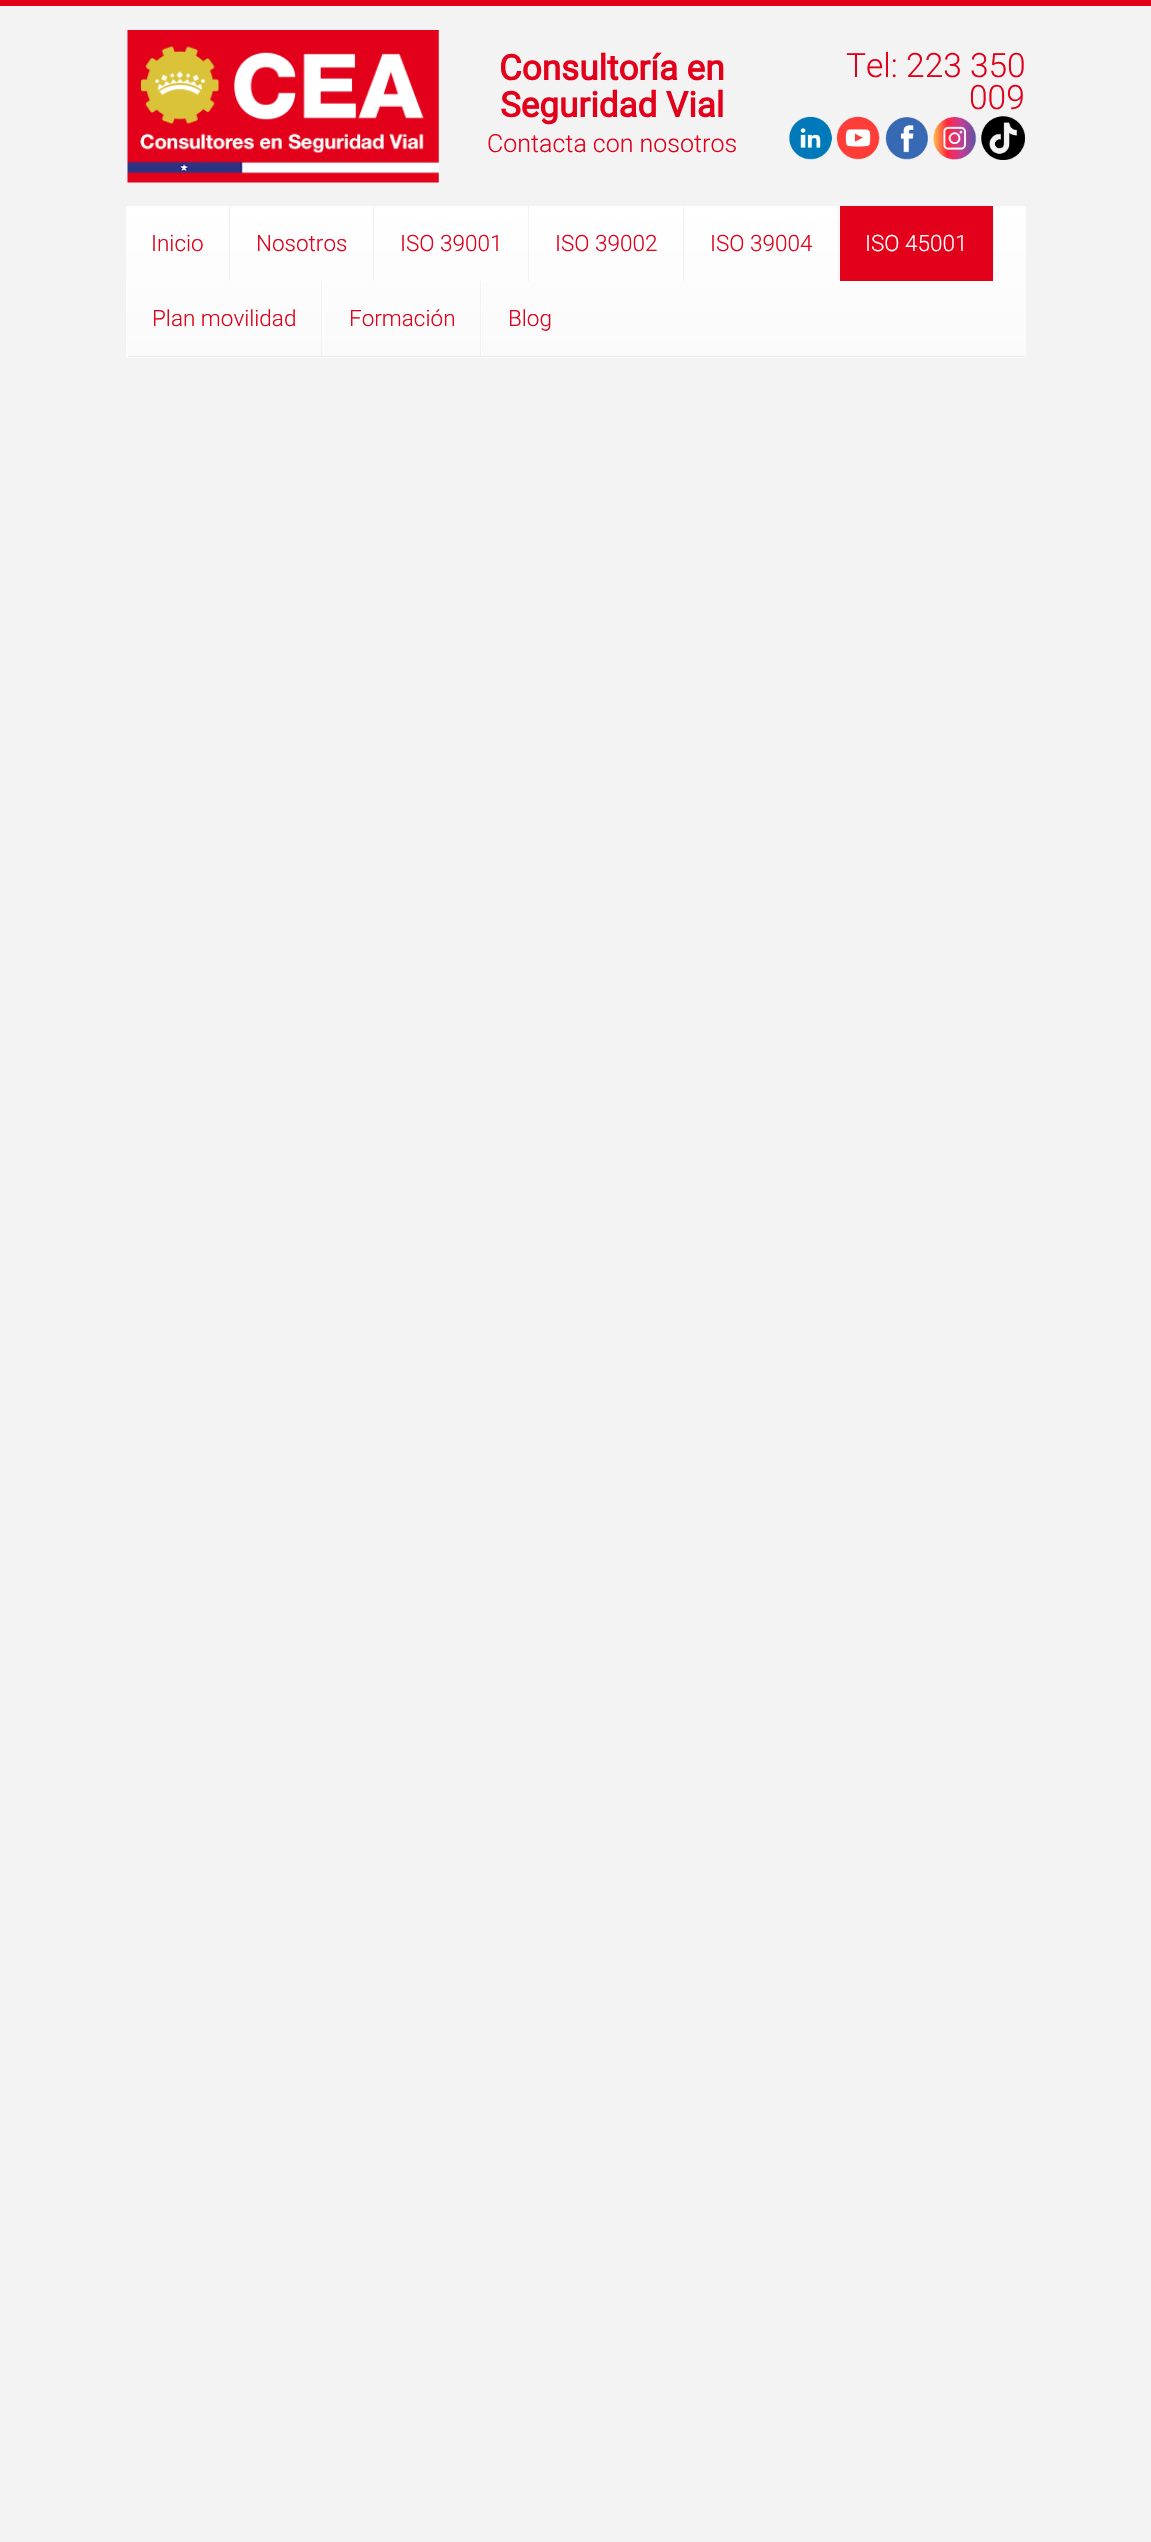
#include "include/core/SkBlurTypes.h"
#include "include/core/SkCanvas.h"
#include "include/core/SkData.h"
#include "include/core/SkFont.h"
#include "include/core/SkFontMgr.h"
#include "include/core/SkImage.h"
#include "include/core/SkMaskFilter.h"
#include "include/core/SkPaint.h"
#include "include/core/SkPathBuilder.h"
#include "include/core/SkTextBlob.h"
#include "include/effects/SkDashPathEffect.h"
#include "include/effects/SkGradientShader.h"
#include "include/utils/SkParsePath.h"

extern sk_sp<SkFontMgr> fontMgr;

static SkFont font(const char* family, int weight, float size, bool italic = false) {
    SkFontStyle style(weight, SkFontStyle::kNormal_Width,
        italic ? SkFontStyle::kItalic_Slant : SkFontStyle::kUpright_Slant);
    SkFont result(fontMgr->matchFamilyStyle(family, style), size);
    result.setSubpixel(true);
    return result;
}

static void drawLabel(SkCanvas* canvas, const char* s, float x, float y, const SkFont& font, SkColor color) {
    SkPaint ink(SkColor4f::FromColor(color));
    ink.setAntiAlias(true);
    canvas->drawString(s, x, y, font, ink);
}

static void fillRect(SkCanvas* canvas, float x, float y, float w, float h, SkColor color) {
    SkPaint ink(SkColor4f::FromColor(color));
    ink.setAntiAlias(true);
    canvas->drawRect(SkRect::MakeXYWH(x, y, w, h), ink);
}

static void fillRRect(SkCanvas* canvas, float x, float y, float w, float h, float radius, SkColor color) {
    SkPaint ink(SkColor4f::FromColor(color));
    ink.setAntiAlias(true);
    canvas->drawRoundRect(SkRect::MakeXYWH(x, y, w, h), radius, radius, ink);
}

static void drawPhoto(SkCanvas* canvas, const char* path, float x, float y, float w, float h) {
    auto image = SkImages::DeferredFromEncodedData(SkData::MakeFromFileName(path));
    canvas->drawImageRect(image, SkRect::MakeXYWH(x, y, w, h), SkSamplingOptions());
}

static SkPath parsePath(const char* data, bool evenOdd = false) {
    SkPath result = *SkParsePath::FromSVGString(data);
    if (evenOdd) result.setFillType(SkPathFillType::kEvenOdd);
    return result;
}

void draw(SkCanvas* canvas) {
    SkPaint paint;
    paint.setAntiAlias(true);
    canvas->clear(0xFFF3F3F3);
    fillRect(canvas, 0, 0, 1151, 6, 0xFFE2001A);
    drawPhoto(canvas, "assets/img1.png", 127, 30, 312, 153);
    SkFont font1 = font("Roboto", 700, 35);
    drawLabel(canvas, "Consultoría en", 499, 80, font1, 0xFFE2001A);
    drawLabel(canvas, "Seguridad Vial", 500, 117, font1, 0xFFE2001A);
    SkFont font2 = font("Roboto", 300, 25);
    drawLabel(canvas, "Contacta con nosotros", 487, 152, font2, 0xFFE2001A);
    SkFont font3 = font("Roboto", 300, 33.5f);
    drawLabel(canvas, "Tel: 223 350", 846, 77, font3, 0xFFE2001A);
    drawLabel(canvas, "009", 969, 109, font3, 0xFFE2001A);
    drawPhoto(canvas, "assets/img2.png", 788, 116, 45, 44);
    drawPhoto(canvas, "assets/img3.png", 836, 116, 44, 44);
    drawPhoto(canvas, "assets/img4.png", 885, 117, 43, 43);
    drawPhoto(canvas, "assets/img5.png", 933, 116, 44, 44);
    drawPhoto(canvas, "assets/img6.png", 981, 116, 44, 44);
    fillRRect(canvas, 126, 206, 900, 152, 2.5f, 0xFFFFFFFF);
    canvas->save();
    canvas->clipPath(parsePath("M128.5 206H1023.5C1025 206 1026 207 1026 208.5V355.5C1026 357 1025 358 1023.5 358H128.5C127 358 126 357 126 355.5V208.5C126 207 127 206 128.5 206Z"), true);
    {
        const SkColor colors[] = {0xFFFFFFFF, 0xFFFAFAFA};
        const float stops[] = {0, 1};
        const SkPoint ends[] = {{576, 206}, {576, 356}};
        paint.setShader(SkGradientShader::MakeLinear(ends, colors, stops, 2, SkTileMode::kClamp));
        paint.setAlpha(255);
    }
    canvas->drawPath(parsePath("M128.5 206H1023.5C1025 206 1026 207 1026 208.5V356H126V208.5C126 207 127 206 128.5 206Z"), paint);
    canvas->restore();
    fillRect(canvas, 128, 356, 897, 1, 0xFFEBEBEB);
    fillRect(canvas, 229, 206, 1, 75, 0xFFF2F2F2);
    SkFont font4 = font("Roboto", 300, 22.5f);
    drawLabel(canvas, "Inicio", 151, 251, font4, 0xFFE2001A);
    fillRect(canvas, 373, 206, 1, 75, 0xFFF2F2F2);
    drawLabel(canvas, "Nosotros", 256, 251, font4, 0xFFE2001A);
    fillRect(canvas, 528, 206, 1, 75, 0xFFF2F2F2);
    drawLabel(canvas, "ISO 39001", 400, 251, font4, 0xFFE2001A);
    fillRect(canvas, 683, 206, 1, 75, 0xFFF2F2F2);
    drawLabel(canvas, "ISO 39002", 555, 251, font4, 0xFFE2001A);
    fillRect(canvas, 838, 206, 1, 75, 0xFFF2F2F2);
    drawLabel(canvas, "ISO 39004", 710, 251, font4, 0xFFE2001A);
    fillRect(canvas, 840, 206, 153, 75, 0xFFE2001A);
    fillRect(canvas, 993, 206, 1, 75, 0xFFF2F2F2);
    drawLabel(canvas, "ISO 45001", 865, 251, font4, 0xFFFFFFFF);
    fillRect(canvas, 321, 281, 1, 75, 0xFFF2F2F2);
    fillRect(canvas, 126, 281, 1, 75, 0xFFFFFFFF);
    drawLabel(canvas, "Plan movilidad", 152, 326, font4, 0xFFE2001A);
    fillRect(canvas, 480, 281, 1, 75, 0xFFF2F2F2);
    fillRect(canvas, 323, 281, 1, 75, 0xFFFFFFFF);
    drawLabel(canvas, "Formación", 349, 326, font4, 0xFFE2001A);
    fillRect(canvas, 481, 281, 1, 75, 0xFFFFFFFF);
    drawLabel(canvas, "Blog", 508, 326, font4, 0xFFE2001A);
}
